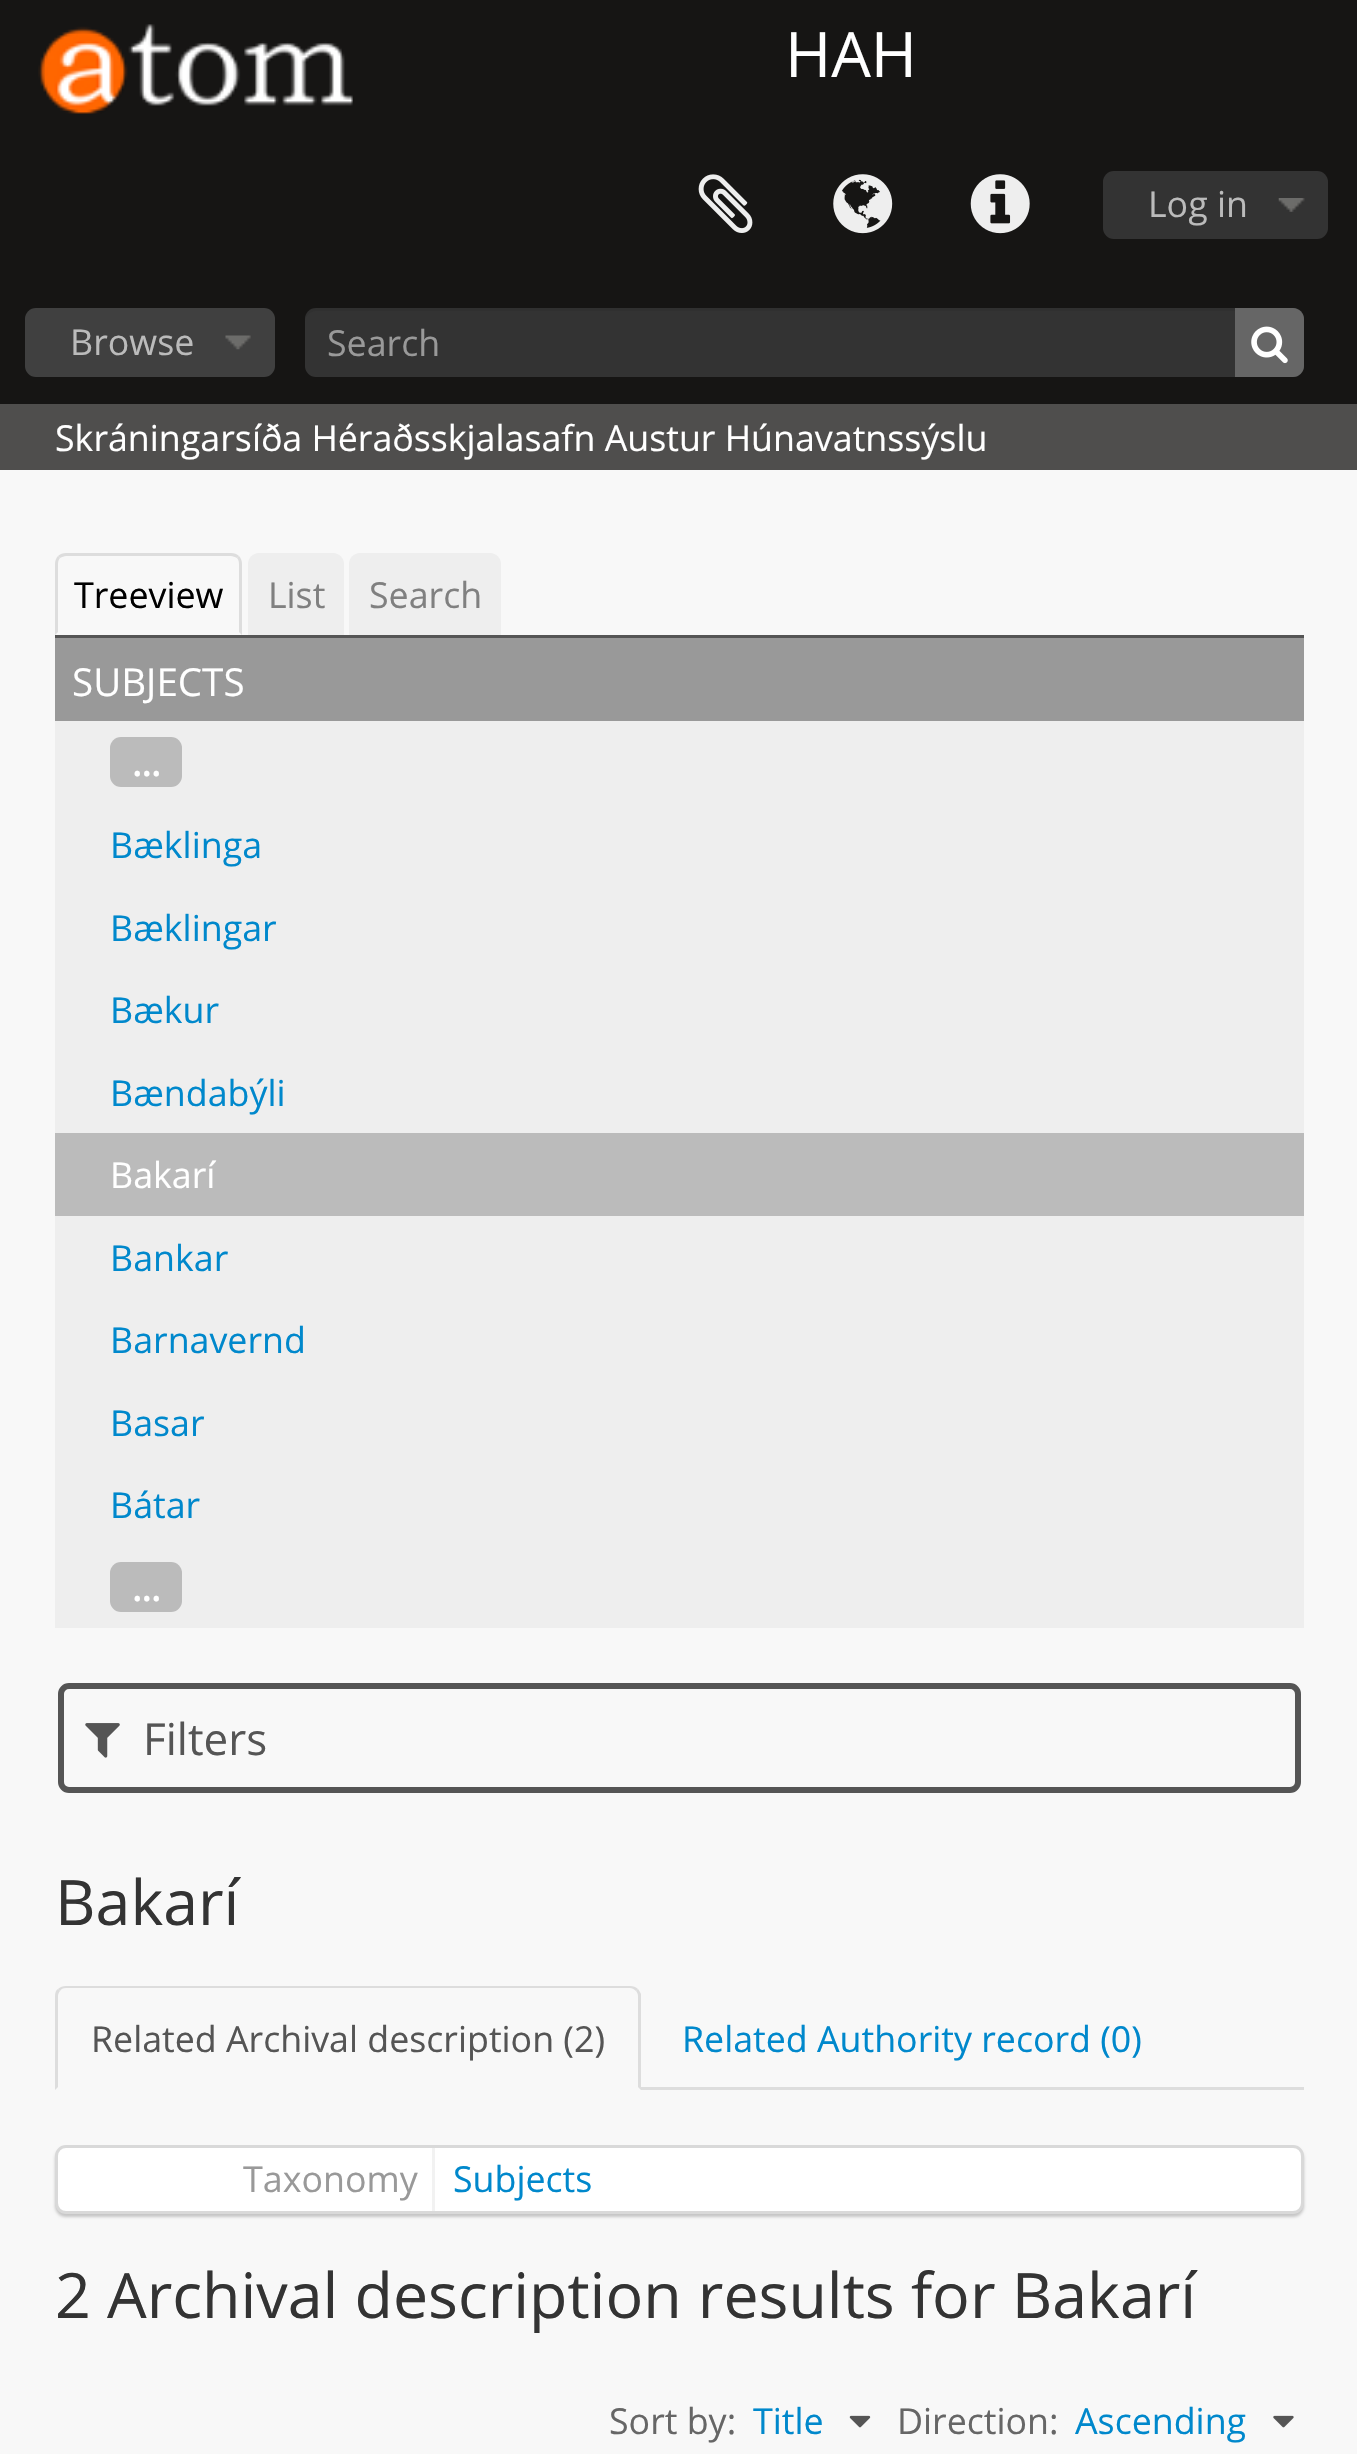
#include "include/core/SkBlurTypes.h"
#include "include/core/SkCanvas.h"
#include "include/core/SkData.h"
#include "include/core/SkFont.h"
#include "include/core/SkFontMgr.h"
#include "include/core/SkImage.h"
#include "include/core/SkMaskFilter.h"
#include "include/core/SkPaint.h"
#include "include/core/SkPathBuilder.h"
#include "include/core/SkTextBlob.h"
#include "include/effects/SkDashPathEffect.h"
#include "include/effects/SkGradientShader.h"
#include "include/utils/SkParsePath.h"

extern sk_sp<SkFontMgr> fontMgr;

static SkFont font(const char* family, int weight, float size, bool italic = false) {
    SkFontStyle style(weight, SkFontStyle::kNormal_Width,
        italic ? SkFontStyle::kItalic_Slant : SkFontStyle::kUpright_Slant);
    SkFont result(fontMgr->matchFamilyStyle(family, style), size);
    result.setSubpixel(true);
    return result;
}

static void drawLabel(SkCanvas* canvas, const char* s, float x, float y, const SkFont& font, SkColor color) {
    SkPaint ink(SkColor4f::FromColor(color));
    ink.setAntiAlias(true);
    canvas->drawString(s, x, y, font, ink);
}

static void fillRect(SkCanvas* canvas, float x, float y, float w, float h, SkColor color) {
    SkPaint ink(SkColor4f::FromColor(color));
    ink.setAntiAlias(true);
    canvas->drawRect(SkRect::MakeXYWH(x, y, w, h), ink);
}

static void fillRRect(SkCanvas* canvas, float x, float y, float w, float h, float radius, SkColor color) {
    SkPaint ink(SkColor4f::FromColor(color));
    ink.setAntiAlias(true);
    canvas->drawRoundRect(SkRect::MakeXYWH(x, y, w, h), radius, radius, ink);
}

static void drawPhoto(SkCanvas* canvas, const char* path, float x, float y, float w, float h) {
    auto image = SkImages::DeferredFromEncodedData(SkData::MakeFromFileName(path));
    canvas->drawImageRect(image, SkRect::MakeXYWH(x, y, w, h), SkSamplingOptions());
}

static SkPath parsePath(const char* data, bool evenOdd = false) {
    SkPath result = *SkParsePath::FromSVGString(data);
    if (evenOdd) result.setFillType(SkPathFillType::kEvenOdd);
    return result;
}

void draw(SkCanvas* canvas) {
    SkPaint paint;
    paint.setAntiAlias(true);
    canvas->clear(0xFFF8F8F8);
    fillRect(canvas, 0, 0, 1357, 404, 0xFF161514);
    drawPhoto(canvas, "assets/img1.png", 38, 24, 315, 90);
    SkFont font1 = font("Open Sans", 400, 62.6f);
    drawLabel(canvas, "HAH", 785, 77, font1, 0xFFFFFFFF);
    drawPhoto(canvas, "assets/img2.png", 698, 174, 55, 59);
    drawPhoto(canvas, "assets/img3.png", 833, 174, 60, 60);
    drawPhoto(canvas, "assets/img4.png", 970, 174, 60, 60);
    fillRRect(canvas, 1103, 171, 225, 68, 11, 0xFF333333);
    drawPhoto(canvas, "assets/img5.png", 1278, 198, 27, 14);
    SkFont font2 = font("Open Sans", 400, 35.75f);
    drawLabel(canvas, "Log in", 1148, 217, font2, 0xFFBBBBBB);
    fillRRect(canvas, 25, 308, 250, 69, 11, 0xFF404040);
    drawPhoto(canvas, "assets/img6.png", 225, 335, 26, 15);
    drawLabel(canvas, "Browse", 70, 355, font2, 0xFFBBBBBB);
    fillRRect(canvas, 305, 308, 999, 69, 11, 0xFF333333);
    paint.setColor(0x12000000);
    canvas->drawPath(parsePath("M316 311H1292C1299 311 1304 316 1304 322V319C1304 313 1299 308 1293 308H316C310 308 305 313 305 319V322C305 316 310 311 316 311Z"), paint);
    drawLabel(canvas, "Search", 327, 356, font2, 0xFF999999);
    paint.setColor(0xFF666666);
    canvas->drawPath(parsePath("M1235 308H1293C1299 308 1304 313 1304 319V366C1304 372 1299 377 1293 377H1235Z"), paint);
    drawPhoto(canvas, "assets/img7.png", 1251, 326, 37, 38);
    fillRect(canvas, 0, 404, 1357, 66, 0xFF4F4E4D);
    drawLabel(canvas, "Skráningarsíða Héraðsskjalasafn Austur Húnavatnssýslu", 55, 451, font2, 0xFFFFFFFF);
    fillRect(canvas, 55, 635, 1249, 3, 0xFF555555);
    paint.setColor(0xFFDDDDDD);
    canvas->drawPath(parsePath("M66 553C63 553 60 554 58 556L60 558C62 557 64 556 66 556H231C233 556 235 557 237 558L239 556C237 554 234 553 231 553Z"), paint);
    canvas->drawPath(parsePath("M239 556C241 558 242 561 242 564V635L239 632V564C239 561 238 559 237 558Z"), paint);
    canvas->drawPath(parsePath("M55 564V635L58 632V564C58 561 59 559 60 558L58 556C56 558 55 561 55 564Z"), paint);
    drawLabel(canvas, "Treeview", 74, 608, font2, 0xFF000000);
    paint.setColor(0xFFEEEEEE);
    canvas->drawPath(parsePath("M259 553H333C339 553 344 558 344 564V635H248V564C248 558 253 553 259 553Z"), paint);
    drawLabel(canvas, "List", 268, 608, font2, 0xFF808080);
    canvas->drawPath(parsePath("M360 553H490C496 553 501 558 501 564V635H349V564C349 558 354 553 360 553Z"), paint);
    drawLabel(canvas, "Search", 369, 608, font2, 0xFF808080);
    fillRect(canvas, 55, 721, 1249, 907, 0xFFEEEEEE);
    fillRect(canvas, 55, 638, 1249, 83, 0xFF999999);
    SkFont font3 = font("Open Sans", 400, 38.5f);
    drawLabel(canvas, "SUBJECTS", 72, 696, font3, 0xFFFFFFFF);
    fillRRect(canvas, 110, 737, 72, 50, 11, 0xFFBBBBBB);
    SkFont font4 = font("Open Sans", 700, 35.75f);
    drawLabel(canvas, "...", 132, 776, font4, 0xFFFFFFFF);
    drawLabel(canvas, "Bæklinga", 110, 858, font2, 0xFF0088CC);
    drawLabel(canvas, "Bæklingar", 110, 941, font2, 0xFF0088CC);
    drawLabel(canvas, "Bækur", 110, 1023, font2, 0xFF0088CC);
    drawLabel(canvas, "Bændabýli", 110, 1106, font2, 0xFF0088CC);
    fillRect(canvas, 55, 1133, 1249, 83, 0xFFBBBBBB);
    drawLabel(canvas, "Bakarí", 110, 1188, font2, 0xFFFFFFFF);
    drawLabel(canvas, "Bankar", 110, 1271, font2, 0xFF0088CC);
    drawLabel(canvas, "Barnavernd", 110, 1353, font2, 0xFF0088CC);
    drawLabel(canvas, "Basar", 110, 1436, font2, 0xFF0088CC);
    drawLabel(canvas, "Bátar", 110, 1518, font2, 0xFF0088CC);
    fillRRect(canvas, 110, 1562, 72, 50, 11, 0xFFBBBBBB);
    drawLabel(canvas, "...", 132, 1601, font4, 0xFFFFFFFF);
    paint.setStroke(true);
    paint.setStrokeWidth(6);
    paint.setColor(0xFF555555);
    canvas->drawRoundRect(SkRect::MakeXYWH(61, 1686, 1237, 104), 8, 8, paint);
    drawPhoto(canvas, "assets/img8.png", 85, 1723, 35, 35);
    SkFont font5 = font("Open Sans", 400, 44);
    drawLabel(canvas, "Filters", 143, 1755, font5, 0xFF555555);
    drawLabel(canvas, "Bakarí", 55, 1925, font1, 0xFF333333);
    fillRect(canvas, 641, 2087, 663, 3, 0xFFDDDDDD);
    paint.setStroke(false);
    paint.setColor(0xFFDDDDDD);
    canvas->drawPath(parsePath("M66 1986C63 1986 60 1987 58 1989L60 1991C61 1989 63 1988 66 1988H630C632 1988 634 1989 636 1991L638 1989C636 1987 633 1986 630 1986Z"), paint);
    canvas->drawPath(parsePath("M638 1989C639 1990 640 1992 641 1994V2090L638 2087V1996C638 1994 637 1992 636 1991Z"), paint);
    canvas->drawPath(parsePath("M55 2090L58 2087V1996C58 1994 59 1992 60 1991L58 1989C56 1990 55 1993 55 1996Z"), paint);
    drawLabel(canvas, "Related Archival description (2)", 91, 2052, font2, 0xFF555555);
    drawLabel(canvas, "Related Authority record (0)", 682, 2052, font2, 0xFF0088CC);
    paint.setColor(0x33000000);
    paint.setMaskFilter(SkMaskFilter::MakeBlur(kNormal_SkBlurStyle, 1.5f));
    canvas->drawRoundRect(SkRect::MakeXYWH(55, 2148, 1249, 69), 11, 11, paint);
    paint.setMaskFilter(nullptr);
    paint.setColor(0xFFFFFFFF);
    canvas->drawRoundRect(SkRect::MakeXYWH(56.5f, 2146.5f, 1246, 66), 9.5f, 9.5f, paint);
    paint.setStroke(true);
    paint.setStrokeWidth(3);
    paint.setColor(0xFFD9D9D9);
    canvas->drawRoundRect(SkRect::MakeXYWH(56.5f, 2146.5f, 1246, 66), 9.5f, 9.5f, paint);
    fillRect(canvas, 432, 2148, 3, 63, 0xFFF2F2F2);
    drawLabel(canvas, "Taxonomy", 243, 2192, font2, 0xFF999999);
    drawLabel(canvas, "Subjects", 453, 2192, font2, 0xFF0088CC);
    drawLabel(canvas, "2 Archival description results for Bakarí", 55, 2318, font1, 0xFF333333);
    drawLabel(canvas, "Sort by:", 609, 2434, font2, 0xFF666666);
    drawLabel(canvas, "Title", 753, 2434, font2, 0xFF0088CC);
    drawPhoto(canvas, "assets/img9.png", 849, 2415, 22, 13);
    drawLabel(canvas, "Direction:", 897, 2434, font2, 0xFF666666);
    drawLabel(canvas, "Ascending", 1075, 2434, font2, 0xFF0088CC);
    drawPhoto(canvas, "assets/img10.png", 1273, 2415, 21, 13);
}
